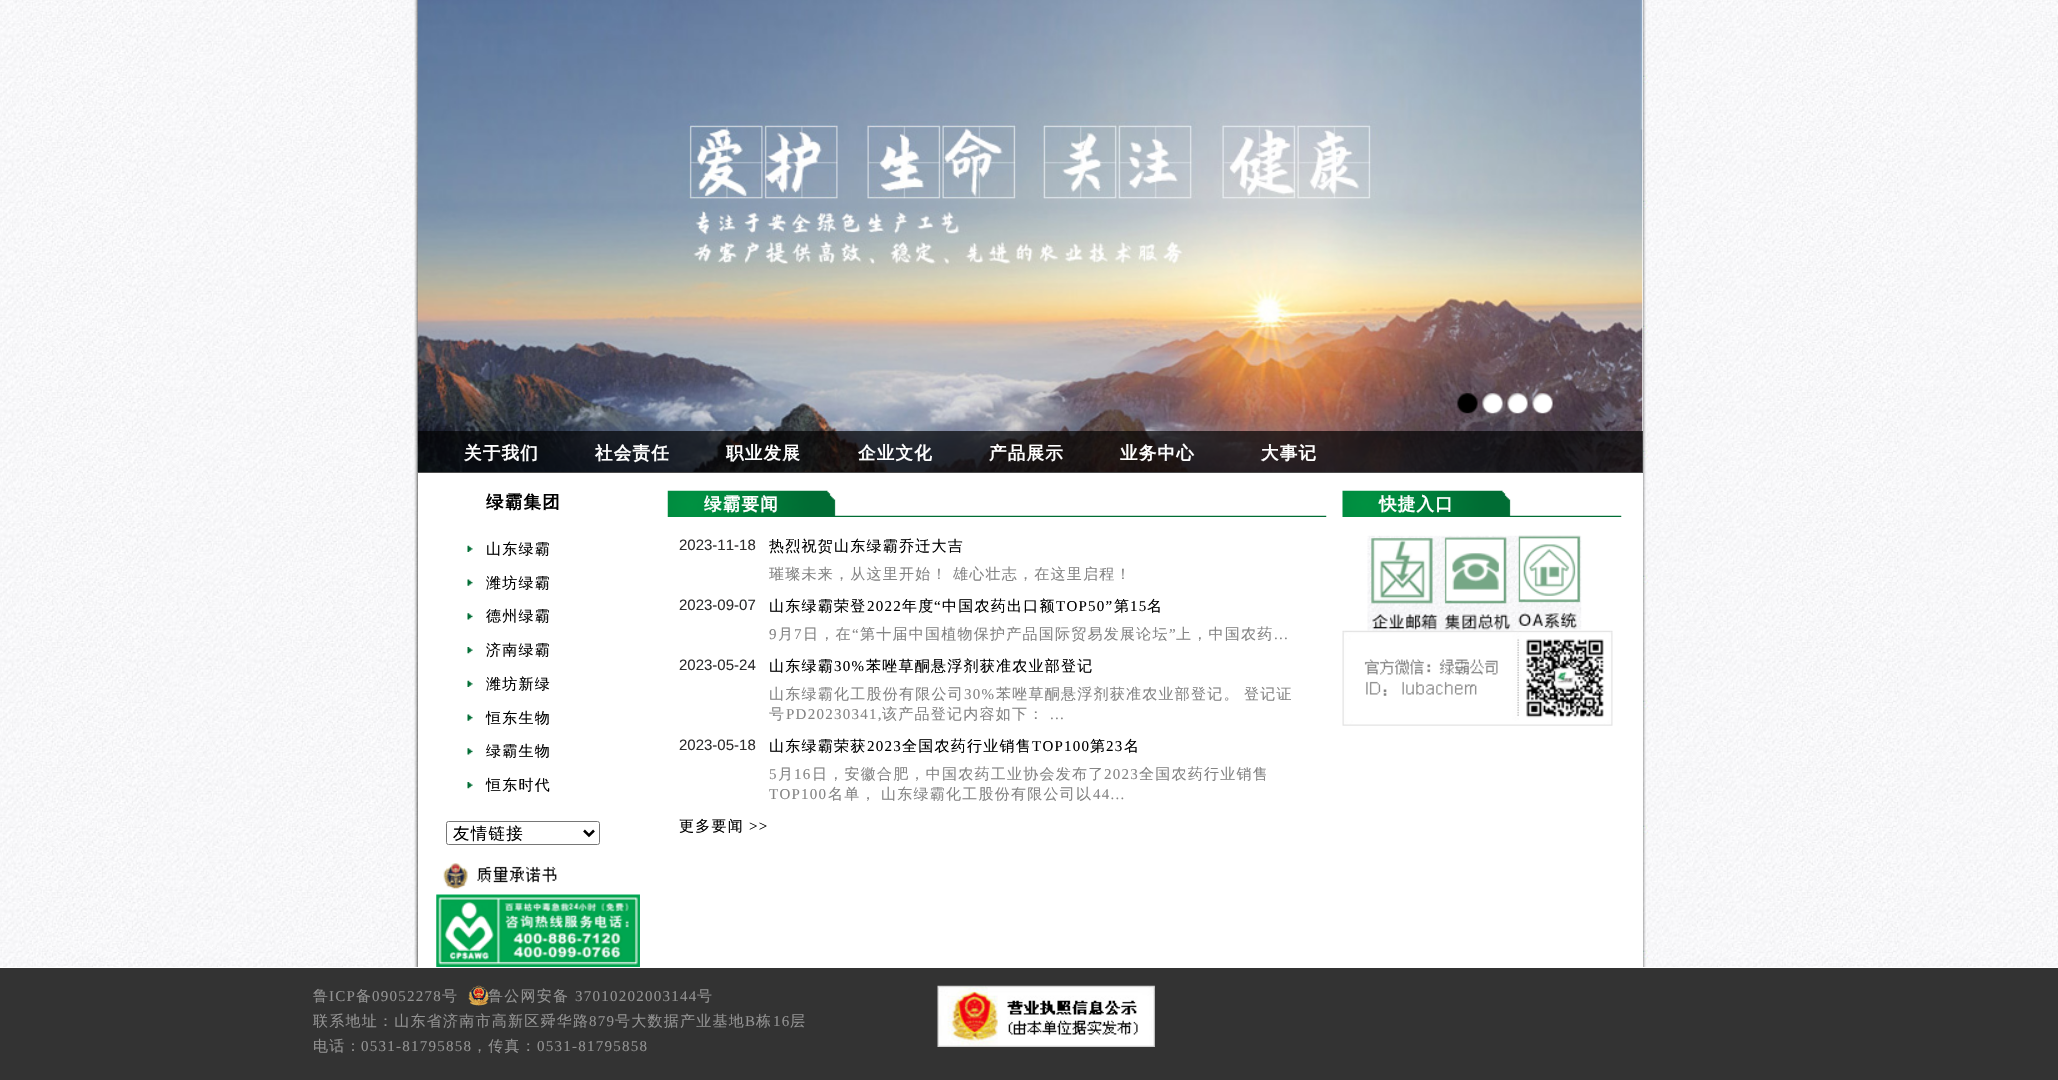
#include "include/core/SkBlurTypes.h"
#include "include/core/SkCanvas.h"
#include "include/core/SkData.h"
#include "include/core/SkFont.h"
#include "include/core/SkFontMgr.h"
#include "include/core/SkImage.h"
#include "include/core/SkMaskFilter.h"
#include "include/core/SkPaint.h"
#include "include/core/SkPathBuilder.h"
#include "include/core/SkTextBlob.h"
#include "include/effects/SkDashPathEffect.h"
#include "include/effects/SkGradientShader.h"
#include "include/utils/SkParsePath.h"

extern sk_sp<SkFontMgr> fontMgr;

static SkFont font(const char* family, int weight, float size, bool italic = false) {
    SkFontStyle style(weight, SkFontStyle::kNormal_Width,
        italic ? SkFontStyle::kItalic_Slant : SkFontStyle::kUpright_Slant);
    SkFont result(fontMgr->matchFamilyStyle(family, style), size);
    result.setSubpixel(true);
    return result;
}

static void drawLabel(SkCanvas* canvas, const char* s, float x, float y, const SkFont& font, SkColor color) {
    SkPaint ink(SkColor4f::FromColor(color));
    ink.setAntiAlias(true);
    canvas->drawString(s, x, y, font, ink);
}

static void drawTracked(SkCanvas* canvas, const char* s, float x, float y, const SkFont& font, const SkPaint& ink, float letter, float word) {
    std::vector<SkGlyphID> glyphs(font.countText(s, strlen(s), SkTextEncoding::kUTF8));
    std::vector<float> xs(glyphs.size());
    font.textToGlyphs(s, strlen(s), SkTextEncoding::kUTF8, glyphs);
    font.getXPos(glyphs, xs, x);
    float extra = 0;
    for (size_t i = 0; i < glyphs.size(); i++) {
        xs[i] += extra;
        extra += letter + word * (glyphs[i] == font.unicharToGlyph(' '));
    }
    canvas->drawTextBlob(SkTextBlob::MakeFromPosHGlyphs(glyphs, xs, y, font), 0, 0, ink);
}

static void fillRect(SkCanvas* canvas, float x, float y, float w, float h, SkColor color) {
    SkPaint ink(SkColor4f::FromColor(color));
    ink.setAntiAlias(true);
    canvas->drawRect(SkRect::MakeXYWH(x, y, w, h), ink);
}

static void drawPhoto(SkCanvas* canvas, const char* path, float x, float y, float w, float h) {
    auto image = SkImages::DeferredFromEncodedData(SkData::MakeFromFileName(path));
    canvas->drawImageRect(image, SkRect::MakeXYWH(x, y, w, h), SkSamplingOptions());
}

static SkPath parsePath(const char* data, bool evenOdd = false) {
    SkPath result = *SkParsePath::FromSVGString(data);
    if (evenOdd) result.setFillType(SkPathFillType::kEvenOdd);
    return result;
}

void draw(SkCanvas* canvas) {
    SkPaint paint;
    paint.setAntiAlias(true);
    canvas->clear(0xFFFFFFFF);
    drawPhoto(canvas, "assets/img1.png", 0, 0, 2058, 967);
    fillRect(canvas, 418, 0, 1225, 967, 0xFFFFFFFF);
    drawPhoto(canvas, "assets/img2.png", 417, 0, 1226, 472);
    drawPhoto(canvas, "assets/img3.png", 1457, 393, 21, 21);
    drawPhoto(canvas, "assets/img4.png", 1482, 393, 21, 21);
    drawPhoto(canvas, "assets/img5.png", 1507, 393, 21, 21);
    drawPhoto(canvas, "assets/img6.png", 1532, 393, 21, 21);
    fillRect(canvas, 418, 431, 1225, 42, 0xB3000000);
    SkFont font1 = font("WenQuanYi Zen Hei", 700, 17.5f);
    paint.setColor(0xFFFFFFFF);
    drawTracked(canvas, "关于我们", 464, 459, font1, paint, 1.25f, 0);
    drawTracked(canvas, "社会责任", 595, 459, font1, paint, 1.25f, 0);
    drawTracked(canvas, "职业发展", 726, 459, font1, paint, 1.25f, 0);
    drawTracked(canvas, "企业文化", 858, 459, font1, paint, 1.25f, 0);
    drawTracked(canvas, "产品展示", 989, 459, font1, paint, 1.25f, 0);
    drawTracked(canvas, "业务中心", 1120, 459, font1, paint, 1.25f, 0);
    drawTracked(canvas, "大事记", 1261, 459, font1, paint, 1.25f, 0);
    paint.setColor(0xFF000000);
    drawTracked(canvas, "绿霸集团", 486, 508, font1, paint, 1.25f, 0);
    drawPhoto(canvas, "assets/img7.png", 467, 545, 6, 7);
    SkFont font2 = font("WenQuanYi Zen Hei", 500, 15);
    drawTracked(canvas, "山东绿霸", 486, 554, font2, paint, 1.25f, 0);
    drawPhoto(canvas, "assets/img8.png", 467, 579, 6, 7);
    drawTracked(canvas, "潍坊绿霸", 486, 588, font2, paint, 1.25f, 0);
    drawPhoto(canvas, "assets/img9.png", 467, 613, 6, 7);
    drawTracked(canvas, "德州绿霸", 486, 621, font2, paint, 1.25f, 0);
    drawPhoto(canvas, "assets/img10.png", 467, 647, 6, 7);
    drawTracked(canvas, "济南绿霸", 486, 655, font2, paint, 1.25f, 0);
    drawPhoto(canvas, "assets/img7.png", 467, 680, 6, 7);
    drawTracked(canvas, "潍坊新绿", 486, 689, font2, paint, 1.25f, 0);
    drawPhoto(canvas, "assets/img8.png", 467, 714, 6, 7);
    drawTracked(canvas, "恒东生物", 486, 723, font2, paint, 1.25f, 0);
    drawPhoto(canvas, "assets/img9.png", 467, 748, 6, 7);
    drawTracked(canvas, "绿霸生物", 486, 756, font2, paint, 1.25f, 0);
    drawPhoto(canvas, "assets/img10.png", 467, 782, 6, 7);
    drawTracked(canvas, "恒东时代", 486, 790, font2, paint, 1.25f, 0);
    paint.setStroke(true);
    paint.setStrokeWidth(1);
    paint.setColor(0xFF767676);
    canvas->drawRoundRect(SkRect::MakeXYWH(446.5f, 821.5f, 153, 23), 2, 2, paint);
    paint.setStrokeWidth(2.5f);
    paint.setColor(0xFF000000);
    canvas->drawPath(parsePath("M584 830.5L589 835.5L594 830.5"), paint);
    SkFont font3 = font("WenQuanYi Zen Hei", 500, 16.5f);
    paint.setStroke(false);
    drawTracked(canvas, "友情链接", 453, 839, font3, paint, 1.25f, 0);
    drawPhoto(canvas, "assets/img11.png", 443, 863, 114, 26);
    drawPhoto(canvas, "assets/img12.png", 436, 894, 204, 73);
    drawPhoto(canvas, "assets/img13.png", 667, 490, 660, 27);
    paint.setColor(0xFFFFFFFF);
    drawTracked(canvas, "绿霸要闻", 704, 510, font1, paint, 1.25f, 0);
    SkFont font4 = font("Liberation Sans", 400, 15);
    drawLabel(canvas, "2023-11-18", 679, 550, font4, 0xFF2E2D2D);
    paint.setColor(0xFF000000);
    drawTracked(canvas, "热烈祝贺山东绿霸乔迁大吉", 769, 551, font2, paint, 1.25f, 0);
    paint.setColor(0xFF848484);
    drawTracked(canvas, "璀璨未来，从这里开始！", 769, 579, font2, paint, 1.25f, 0);
    drawTracked(canvas, "雄心壮志，在这里启程！", 953, 579, font2, paint, 1.25f, 0);
    drawLabel(canvas, "2023-09-07", 679, 610, font4, 0xFF2E2D2D);
    paint.setColor(0xFF000000);
    drawTracked(canvas, "山东绿霸荣登", 769, 611, font2, paint, 1.25f, 0);
    SkFont font5 = font("Liberation Serif", 400, 15);
    drawTracked(canvas, "2022", 867, 611, font5, paint, 1.25f, 0);
    drawTracked(canvas, "年度", 902, 611, font2, paint, 1.25f, 0);
    drawTracked(canvas, "“", 934, 611, font5, paint, 1.25f, 0);
    drawTracked(canvas, "中国农药出口额", 942, 611, font2, paint, 1.25f, 0);
    drawTracked(canvas, "TOP50”", 1056, 611, font5, paint, 1.25f, 0);
    drawTracked(canvas, "第", 1114, 611, font2, paint, 1.25f, 0);
    drawTracked(canvas, "15", 1130, 611, font5, paint, 1.25f, 0);
    drawTracked(canvas, "名", 1147, 611, font2, paint, 1.25f, 0);
    paint.setColor(0xFF848484);
    drawTracked(canvas, "9", 769, 639, font5, paint, 1.25f, 0);
    drawTracked(canvas, "月", 778, 639, font2, paint, 1.25f, 0);
    drawTracked(canvas, "7", 794, 639, font5, paint, 1.25f, 0);
    drawTracked(canvas, "日，在", 803, 639, font2, paint, 1.25f, 0);
    drawTracked(canvas, "“", 852, 639, font5, paint, 1.25f, 0);
    drawTracked(canvas, "第十届中国植物保护产品国际贸易发展论坛", 860, 639, font2, paint, 1.25f, 0);
    drawTracked(canvas, "”", 1169, 639, font5, paint, 1.25f, 0);
    drawTracked(canvas, "上，中国农药", 1176, 639, font2, paint, 1.25f, 0);
    drawTracked(canvas, "...", 1274, 639, font5, paint, 1.25f, 0);
    drawLabel(canvas, "2023-05-24", 679, 670, font4, 0xFF2E2D2D);
    paint.setColor(0xFF000000);
    drawTracked(canvas, "山东绿霸", 769, 671, font2, paint, 1.25f, 0);
    drawTracked(canvas, "30%", 834, 671, font5, paint, 1.25f, 0);
    drawTracked(canvas, "苯唑草酮悬浮剂获准农业部登记", 866, 671, font2, paint, 1.25f, 0);
    paint.setColor(0xFF848484);
    drawTracked(canvas, "山东绿霸化工股份有限公司", 769, 699, font2, paint, 1.25f, 0);
    drawTracked(canvas, "30%", 964, 699, font5, paint, 1.25f, 0);
    drawTracked(canvas, "苯唑草酮悬浮剂获准农业部登记。", 996, 699, font2, paint, 1.25f, 0);
    drawTracked(canvas, "登记证", 1244, 699, font2, paint, 1.25f, 0);
    drawTracked(canvas, "号", 769, 719, font2, paint, 1.25f, 0);
    drawTracked(canvas, "PD20230341,", 786, 719, font5, paint, 1.25f, 0);
    drawTracked(canvas, "该产品登记内容如下：", 882, 719, font2, paint, 1.25f, 0);
    drawTracked(canvas, "...", 1050, 719, font5, paint, 1.25f, 0);
    drawLabel(canvas, "2023-05-18", 679, 750, font4, 0xFF2E2D2D);
    paint.setColor(0xFF000000);
    drawTracked(canvas, "山东绿霸荣获", 769, 751, font2, paint, 1.25f, 0);
    drawTracked(canvas, "2023", 867, 751, font5, paint, 1.25f, 0);
    drawTracked(canvas, "全国农药行业销售", 902, 751, font2, paint, 1.25f, 0);
    drawTracked(canvas, "TOP100", 1032, 751, font5, paint, 1.25f, 0);
    drawTracked(canvas, "第", 1090, 751, font2, paint, 1.25f, 0);
    drawTracked(canvas, "23", 1106, 751, font5, paint, 1.25f, 0);
    drawTracked(canvas, "名", 1124, 751, font2, paint, 1.25f, 0);
    paint.setColor(0xFF848484);
    drawTracked(canvas, "5", 769, 779, font5, paint, 1.25f, 0);
    drawTracked(canvas, "月", 778, 779, font2, paint, 1.25f, 0);
    drawTracked(canvas, "16", 794, 779, font5, paint, 1.25f, 0);
    drawTracked(canvas, "日，安徽合肥，中国农药工业协会发布了", 812, 779, font2, paint, 1.25f, 0);
    drawTracked(canvas, "2023", 1104, 779, font5, paint, 1.25f, 0);
    drawTracked(canvas, "全国农药行业销售", 1139, 779, font2, paint, 1.25f, 0);
    drawTracked(canvas, "TOP100", 769, 799, font5, paint, 1.25f, 0);
    drawTracked(canvas, "名单，", 828, 799, font2, paint, 1.25f, 0);
    drawTracked(canvas, "山东绿霸化工股份有限公司以", 881, 799, font2, paint, 1.25f, 0);
    drawTracked(canvas, "44...", 1093, 799, font5, paint, 1.25f, 0);
    paint.setColor(0xFF000000);
    drawTracked(canvas, "更多要闻", 679, 831, font2, paint, 1.25f, 0);
    drawTracked(canvas, ">>", 749, 831, font5, paint, 1.25f, 0);
    drawPhoto(canvas, "assets/img14.png", 1342, 490, 280, 27);
    paint.setColor(0xFFFFFFFF);
    drawTracked(canvas, "快捷入口", 1379, 510, font1, paint, 1.25f, 0);
    drawPhoto(canvas, "assets/img15.png", 1367, 535, 73, 96);
    drawPhoto(canvas, "assets/img16.png", 1440, 535, 75, 96);
    drawPhoto(canvas, "assets/img17.png", 1515, 535, 67, 95);
    drawPhoto(canvas, "assets/img18.png", 1342, 630, 271, 96);
    fillRect(canvas, 0, 968, 2058, 112, 0xFF333333);
    paint.setColor(0xFF929292);
    drawTracked(canvas, "鲁", 313, 1001, font2, paint, 1.25f, 0);
    drawTracked(canvas, "ICP", 329, 1001, font5, paint, 1.25f, 0);
    drawTracked(canvas, "备", 356, 1001, font2, paint, 1.25f, 0);
    drawTracked(canvas, "09052278", 372, 1001, font5, paint, 1.25f, 0);
    drawTracked(canvas, "号", 442, 1001, font2, paint, 1.25f, 0);
    drawPhoto(canvas, "assets/img19.png", 468, 985, 21, 21);
    drawTracked(canvas, "鲁公网安备", 488, 1001, font2, paint, 1.25f, 0);
    drawTracked(canvas, "37010202003144", 575, 1001, font5, paint, 1.25f, 0);
    drawTracked(canvas, "号", 697, 1001, font2, paint, 1.25f, 0);
    drawTracked(canvas, "联系地址：山东省济南市高新区舜华路", 313, 1026, font2, paint, 1.25f, 0);
    drawTracked(canvas, "879", 589, 1026, font5, paint, 1.25f, 0);
    drawTracked(canvas, "号大数据产业基地", 615, 1026, font2, paint, 1.25f, 0);
    drawTracked(canvas, "B", 745, 1026, font5, paint, 1.25f, 0);
    drawTracked(canvas, "栋", 756, 1026, font2, paint, 1.25f, 0);
    drawTracked(canvas, "16", 773, 1026, font5, paint, 1.25f, 0);
    drawTracked(canvas, "层", 790, 1026, font2, paint, 1.25f, 0);
    drawTracked(canvas, "电话：", 313, 1051, font2, paint, 1.25f, 0);
    drawTracked(canvas, "0531-81795858", 361, 1051, font5, paint, 1.25f, 0);
    drawTracked(canvas, "，传真：", 472, 1051, font2, paint, 1.25f, 0);
    drawTracked(canvas, "0531-81795858", 537, 1051, font5, paint, 1.25f, 0);
    drawPhoto(canvas, "assets/img20.png", 937, 985, 218, 62);
}
